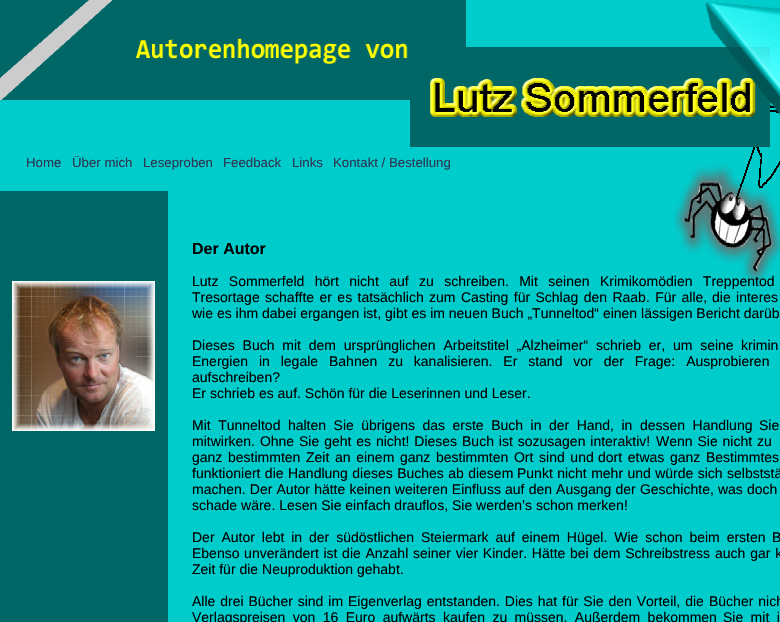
#include "include/core/SkBlurTypes.h"
#include "include/core/SkCanvas.h"
#include "include/core/SkData.h"
#include "include/core/SkFont.h"
#include "include/core/SkFontMgr.h"
#include "include/core/SkImage.h"
#include "include/core/SkMaskFilter.h"
#include "include/core/SkPaint.h"
#include "include/core/SkPathBuilder.h"
#include "include/core/SkTextBlob.h"
#include "include/effects/SkDashPathEffect.h"
#include "include/effects/SkGradientShader.h"
#include "include/utils/SkParsePath.h"

extern sk_sp<SkFontMgr> fontMgr;

static SkFont font(const char* family, int weight, float size, bool italic = false) {
    SkFontStyle style(weight, SkFontStyle::kNormal_Width,
        italic ? SkFontStyle::kItalic_Slant : SkFontStyle::kUpright_Slant);
    SkFont result(fontMgr->matchFamilyStyle(family, style), size);
    result.setSubpixel(true);
    return result;
}

static void drawLabel(SkCanvas* canvas, const char* s, float x, float y, const SkFont& font, SkColor color) {
    SkPaint ink(SkColor4f::FromColor(color));
    ink.setAntiAlias(true);
    canvas->drawString(s, x, y, font, ink);
}

static void drawTracked(SkCanvas* canvas, const char* s, float x, float y, const SkFont& font, const SkPaint& ink, float letter, float word) {
    std::vector<SkGlyphID> glyphs(font.countText(s, strlen(s), SkTextEncoding::kUTF8));
    std::vector<float> xs(glyphs.size());
    font.textToGlyphs(s, strlen(s), SkTextEncoding::kUTF8, glyphs);
    font.getXPos(glyphs, xs, x);
    float extra = 0;
    for (size_t i = 0; i < glyphs.size(); i++) {
        xs[i] += extra;
        extra += letter + word * (glyphs[i] == font.unicharToGlyph(' '));
    }
    canvas->drawTextBlob(SkTextBlob::MakeFromPosHGlyphs(glyphs, xs, y, font), 0, 0, ink);
}

static void fillRect(SkCanvas* canvas, float x, float y, float w, float h, SkColor color) {
    SkPaint ink(SkColor4f::FromColor(color));
    ink.setAntiAlias(true);
    canvas->drawRect(SkRect::MakeXYWH(x, y, w, h), ink);
}

static void drawPhoto(SkCanvas* canvas, const char* path, float x, float y, float w, float h) {
    auto image = SkImages::DeferredFromEncodedData(SkData::MakeFromFileName(path));
    canvas->drawImageRect(image, SkRect::MakeXYWH(x, y, w, h), SkSamplingOptions());
}

void draw(SkCanvas* canvas) {
    SkPaint paint;
    paint.setAntiAlias(true);
    canvas->clear(0xFF00CCCC);
    drawPhoto(canvas, "assets/img1.png", 0, 0, 466, 100);
    drawPhoto(canvas, "assets/img4.png", 674, 105, 106, 180);
    drawPhoto(canvas, "assets/img3.png", 410, 47, 360, 100);
    drawPhoto(canvas, "assets/img2.png", 705, 2, 75, 113);
    SkFont font1 = font("Liberation Sans", 400, 13.25f);
    drawLabel(canvas, "Home", 26, 167, font1, 0xFF2C3651);
    drawLabel(canvas, "Über mich", 72, 167, font1, 0xFF2C3651);
    drawLabel(canvas, "Leseproben", 143, 167, font1, 0xFF2C3651);
    drawLabel(canvas, "Feedback", 223, 167, font1, 0xFF2C3651);
    drawLabel(canvas, "Links", 292, 167, font1, 0xFF2C3651);
    drawLabel(canvas, "Kontakt / Bestellung", 333, 167, font1, 0xFF2C3651);
    fillRect(canvas, 0, 191, 168, 431, 0xFF006666);
    SkFont font2 = font("Liberation Sans", 700, 16);
    drawLabel(canvas, "Der Autor", 192, 254, font2, 0xFF000000);
    SkFont font3 = font("Liberation Sans", 400, 14);
    paint.setColor(0xFF000000);
    drawTracked(canvas, "Lutz Sommerfeld hört nicht auf zu schreiben. Mit seinen Krimikomödien Treppentod", 192, 286, font3, paint, 0, 6.5f);
    drawTracked(canvas, "Tresortage schaffte er es tatsächlich zum Casting für Schlag den Raab. Für alle,", 192, 302, font3, paint, 0, 1.5f);
    drawTracked(canvas, "die interes", 712, 302, font3, paint, 0, 1.5f);
    drawLabel(canvas, "wie es ihm dabei ergangen ist, gibt es im neuen Buch „Tunneltod“ einen lässigen Bericht darüb", 192, 318, font3, 0xFF000000);
    drawTracked(canvas, "Dieses Buch mit dem ursprünglichen Arbeitstitel „Alzheimer“ schrieb er, um seine", 192, 350, font3, paint, 0, 3.9f);
    drawLabel(canvas, "krimin", 741, 350, font3, 0xFF000000);
    drawTracked(canvas, "Energien in legale Bahnen zu kanalisieren. Er stand vor der Frage: Ausprobieren", 192, 366, font3, paint, 0, 7);
    drawLabel(canvas, "aufschreiben?", 192, 382, font3, 0xFF000000);
    drawLabel(canvas, "Er schrieb es auf. Schön für die Leserinnen und Leser.", 192, 398, font3, 0xFF000000);
    drawTracked(canvas, "Mit Tunneltod halten Sie übrigens das erste Buch in der Hand, in dessen Handlung", 192, 430, font3, paint, 0, 3.6f);
    drawTracked(canvas, "Sie", 759, 430, font3, paint, 0, 3.6f);
    drawTracked(canvas, "mitwirken. Ohne Sie geht es nicht! Dieses Buch ist sozusagen interaktiv!", 192, 446, font3, paint, 0, 1);
    drawTracked(canvas, "Wenn Sie nicht zu", 656, 446, font3, paint, 0, 1);
    drawTracked(canvas, "ganz bestimmten Zeit an einem ganz bestimmten Ort sind und", 192, 462, font3, paint, 0, 1.75f);
    drawTracked(canvas, "dort etwas ganz Bestimmtes", 598, 462, font3, paint, 0, 1.75f);
    drawTracked(canvas, "funktioniert die Handlung dieses Buches ab diesem", 192, 478, font3, paint, 0, 0.5f);
    drawTracked(canvas, "Punkt nicht mehr und würde sich selbststä", 517, 478, font3, paint, 0, 0.5f);
    drawTracked(canvas, "machen. Der Autor hätte keinen weiteren Einfluss auf den Ausgang der Geschichte, was doch", 192, 494, font3, paint, 0, 0.25f);
    drawLabel(canvas, "schade wäre. Lesen Sie einfach drauflos, Sie werden’s schon merken!", 192, 510, font3, 0xFF000000);
    drawTracked(canvas, "Der Autor lebt in der südöstlichen Steiermark auf einem Hügel. Wie schon beim ersten", 192, 542, font3, paint, 0, 3);
    drawLabel(canvas, "B", 772, 542, font3, 0xFF000000);
    drawTracked(canvas, "Ebenso unverändert ist die Anzahl seiner vier Kinder. Hätte bei dem Schreibstress", 192, 558, font3, paint, 0, 0.75f);
    drawTracked(canvas, "auch gar k", 715, 558, font3, paint, 0, 1);
    drawLabel(canvas, "Zeit für die Neuproduktion gehabt.", 192, 574, font3, 0xFF000000);
    drawTracked(canvas, "Alle drei Bücher sind im Eigenverlag entstanden. Dies hat für Sie den Vorteil, die", 192, 606, font3, paint, 0, 1);
    drawTracked(canvas, "Bücher nich", 709, 606, font3, paint, 0, 1);
    drawTracked(canvas, "Verlagspreisen von 16 Euro aufwärts kaufen zu müssen. Außerdem bekommen", 192, 622, font3, paint, 0, 3.5f);
    drawTracked(canvas, "Sie mit j", 723, 622, font3, paint, 0, 3.5f);
    drawPhoto(canvas, "assets/img5.png", 12, 281, 143, 150);
}
